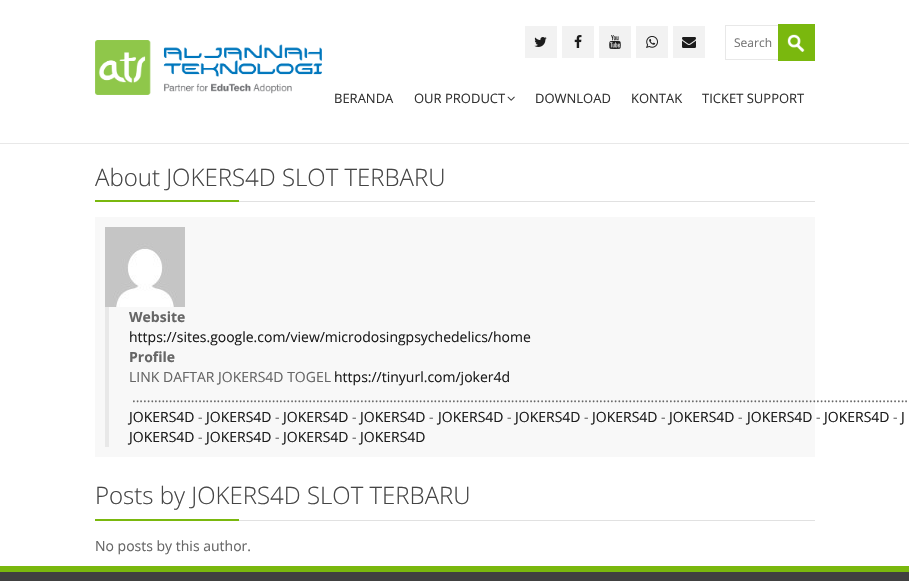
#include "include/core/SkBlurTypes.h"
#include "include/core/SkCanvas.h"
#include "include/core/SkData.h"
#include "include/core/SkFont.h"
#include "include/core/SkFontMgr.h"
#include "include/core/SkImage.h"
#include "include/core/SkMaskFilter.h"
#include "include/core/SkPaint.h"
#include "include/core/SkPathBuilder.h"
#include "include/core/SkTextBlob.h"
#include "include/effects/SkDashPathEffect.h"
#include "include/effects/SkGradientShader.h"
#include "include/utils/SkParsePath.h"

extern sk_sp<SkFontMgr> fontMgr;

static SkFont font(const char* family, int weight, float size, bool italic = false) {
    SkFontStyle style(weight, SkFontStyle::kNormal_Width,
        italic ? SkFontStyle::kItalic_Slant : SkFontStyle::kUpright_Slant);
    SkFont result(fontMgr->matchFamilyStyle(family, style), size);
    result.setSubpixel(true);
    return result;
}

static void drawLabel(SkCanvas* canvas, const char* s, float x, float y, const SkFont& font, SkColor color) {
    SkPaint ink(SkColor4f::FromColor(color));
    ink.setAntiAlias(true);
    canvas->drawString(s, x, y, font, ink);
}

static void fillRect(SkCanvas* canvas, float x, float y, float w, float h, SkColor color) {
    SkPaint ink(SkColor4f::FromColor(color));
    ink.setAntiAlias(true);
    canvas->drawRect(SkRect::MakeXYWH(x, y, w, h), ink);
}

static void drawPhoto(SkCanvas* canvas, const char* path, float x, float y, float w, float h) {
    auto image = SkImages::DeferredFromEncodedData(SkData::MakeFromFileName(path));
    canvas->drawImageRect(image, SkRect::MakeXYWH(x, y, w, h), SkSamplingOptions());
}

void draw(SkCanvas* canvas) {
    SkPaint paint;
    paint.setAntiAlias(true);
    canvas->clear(0xFFFFFFFF);
    fillRect(canvas, 0, 143, 909, 1, 0xFFE8E8E8);
    drawPhoto(canvas, "assets/img1.png", 95, 40, 227, 55);
    fillRect(canvas, 525, 26, 32, 32, 0xFFF2F2F2);
    drawPhoto(canvas, "assets/img2.png", 534, 37, 13, 10);
    fillRect(canvas, 562, 26, 32, 32, 0xFFF2F2F2);
    drawPhoto(canvas, "assets/img3.png", 574, 35, 8, 13);
    fillRect(canvas, 599, 26, 32, 32, 0xFFF2F2F2);
    drawPhoto(canvas, "assets/img4.png", 609, 35, 12, 14);
    fillRect(canvas, 636, 26, 32, 32, 0xFFF2F2F2);
    drawPhoto(canvas, "assets/img5.png", 646, 36, 12, 12);
    fillRect(canvas, 673, 26, 32, 32, 0xFFF2F2F2);
    drawPhoto(canvas, "assets/img6.png", 682, 37, 14, 11);
    paint.setStroke(true);
    paint.setStrokeWidth(1);
    paint.setColor(0xFFE8E8E8);
    canvas->drawRect(SkRect::MakeXYWH(725.5f, 25.5f, 89, 34), paint);
    SkFont font1 = font("Open Sans", 400, 12);
    drawLabel(canvas, "Search", 734, 47, font1, 0xFF757575);
    fillRect(canvas, 778, 24, 37, 37, 0xFF7AB80E);
    drawPhoto(canvas, "assets/img7.png", 787, 34, 18, 18);
    SkFont font2 = font("Open Sans", 400, 13);
    drawLabel(canvas, "BERANDA", 334, 103, font2, 0xFF333333);
    drawLabel(canvas, "OUR PRODUCT", 414, 103, font2, 0xFF333333);
    drawPhoto(canvas, "assets/img8.png", 507, 96, 8, 5);
    drawLabel(canvas, "DOWNLOAD", 535, 103, font2, 0xFF333333);
    drawLabel(canvas, "KONTAK", 631, 103, font2, 0xFF333333);
    drawLabel(canvas, "TICKET SUPPORT", 702, 103, font2, 0xFF333333);
    SkFont font3 = font("Open Sans", 300, 24);
    drawLabel(canvas, "About JOKERS4D SLOT TERBARU", 95, 186, font3, 0xFF454545);
    fillRect(canvas, 95, 200, 144, 2, 0xFF7AB80E);
    fillRect(canvas, 239, 201, 576, 1, 0xFFE1E1E1);
    fillRect(canvas, 95, 217, 720, 240, 0xFFF8F8F8);
    drawPhoto(canvas, "assets/img9.png", 105, 227, 80, 80);
    fillRect(canvas, 105, 307, 4, 140, 0xFFE8E8E8);
    SkFont font4 = font("Open Sans", 700, 14);
    drawLabel(canvas, "Website", 129, 322, font4, 0xFF666666);
    SkFont font5 = font("Open Sans", 400, 14);
    drawLabel(canvas, "https://sites.google.com/view/microdosingpsychedelics/home", 129, 342, font5, 0xFF1C1C1C);
    drawLabel(canvas, "Profile", 129, 362, font4, 0xFF666666);
    drawLabel(canvas, "LINK DAFTAR JOKERS4D TOGEL", 129, 382, font5, 0xFF666666);
    drawLabel(canvas, "https://tinyurl.com/joker4d", 334, 382, font5, 0xFF1C1C1C);
    drawLabel(canvas, "...................................................................................................................................................................................................................", 132, 402, font5, 0xFF666666);
    drawLabel(canvas, "JOKERS4D", 129, 422, font5, 0xFF1C1C1C);
    drawLabel(canvas, "-", 198, 422, font5, 0xFF666666);
    drawLabel(canvas, "JOKERS4D", 206, 422, font5, 0xFF1C1C1C);
    drawLabel(canvas, "-", 275, 422, font5, 0xFF666666);
    drawLabel(canvas, "JOKERS4D", 283, 422, font5, 0xFF1C1C1C);
    drawLabel(canvas, "-", 352, 422, font5, 0xFF666666);
    drawLabel(canvas, "JOKERS4D", 360, 422, font5, 0xFF1C1C1C);
    drawLabel(canvas, "-", 429, 422, font5, 0xFF666666);
    drawLabel(canvas, "JOKERS4D", 438, 422, font5, 0xFF1C1C1C);
    drawLabel(canvas, "-", 507, 422, font5, 0xFF666666);
    drawLabel(canvas, "JOKERS4D", 515, 422, font5, 0xFF1C1C1C);
    drawLabel(canvas, "-", 584, 422, font5, 0xFF666666);
    drawLabel(canvas, "JOKERS4D", 592, 422, font5, 0xFF1C1C1C);
    drawLabel(canvas, "-", 661, 422, font5, 0xFF666666);
    drawLabel(canvas, "JOKERS4D", 669, 422, font5, 0xFF1C1C1C);
    drawLabel(canvas, "-", 738, 422, font5, 0xFF666666);
    drawLabel(canvas, "JOKERS4D", 747, 422, font5, 0xFF1C1C1C);
    drawLabel(canvas, "-", 816, 422, font5, 0xFF666666);
    drawLabel(canvas, "JOKERS4D", 824, 422, font5, 0xFF1C1C1C);
    drawLabel(canvas, "-", 893, 422, font5, 0xFF666666);
    drawLabel(canvas, "J", 901, 422, font5, 0xFF1C1C1C);
    drawLabel(canvas, "JOKERS4D", 129, 442, font5, 0xFF1C1C1C);
    drawLabel(canvas, "-", 198, 442, font5, 0xFF666666);
    drawLabel(canvas, "JOKERS4D", 206, 442, font5, 0xFF1C1C1C);
    drawLabel(canvas, "-", 275, 442, font5, 0xFF666666);
    drawLabel(canvas, "JOKERS4D", 283, 442, font5, 0xFF1C1C1C);
    drawLabel(canvas, "-", 352, 442, font5, 0xFF666666);
    drawLabel(canvas, "JOKERS4D", 360, 442, font5, 0xFF1C1C1C);
    drawLabel(canvas, "Posts by JOKERS4D SLOT TERBARU", 95, 504, font3, 0xFF454545);
    fillRect(canvas, 95, 519, 144, 2, 0xFF7AB80E);
    fillRect(canvas, 239, 520, 576, 1, 0xFFE1E1E1);
    drawLabel(canvas, "No posts by this author.", 95, 551, font5, 0xFF666666);
    fillRect(canvas, 0, 572, 909, 9, 0xFF404040);
    fillRect(canvas, 0, 566, 909, 6, 0xFF7AB80E);
}
